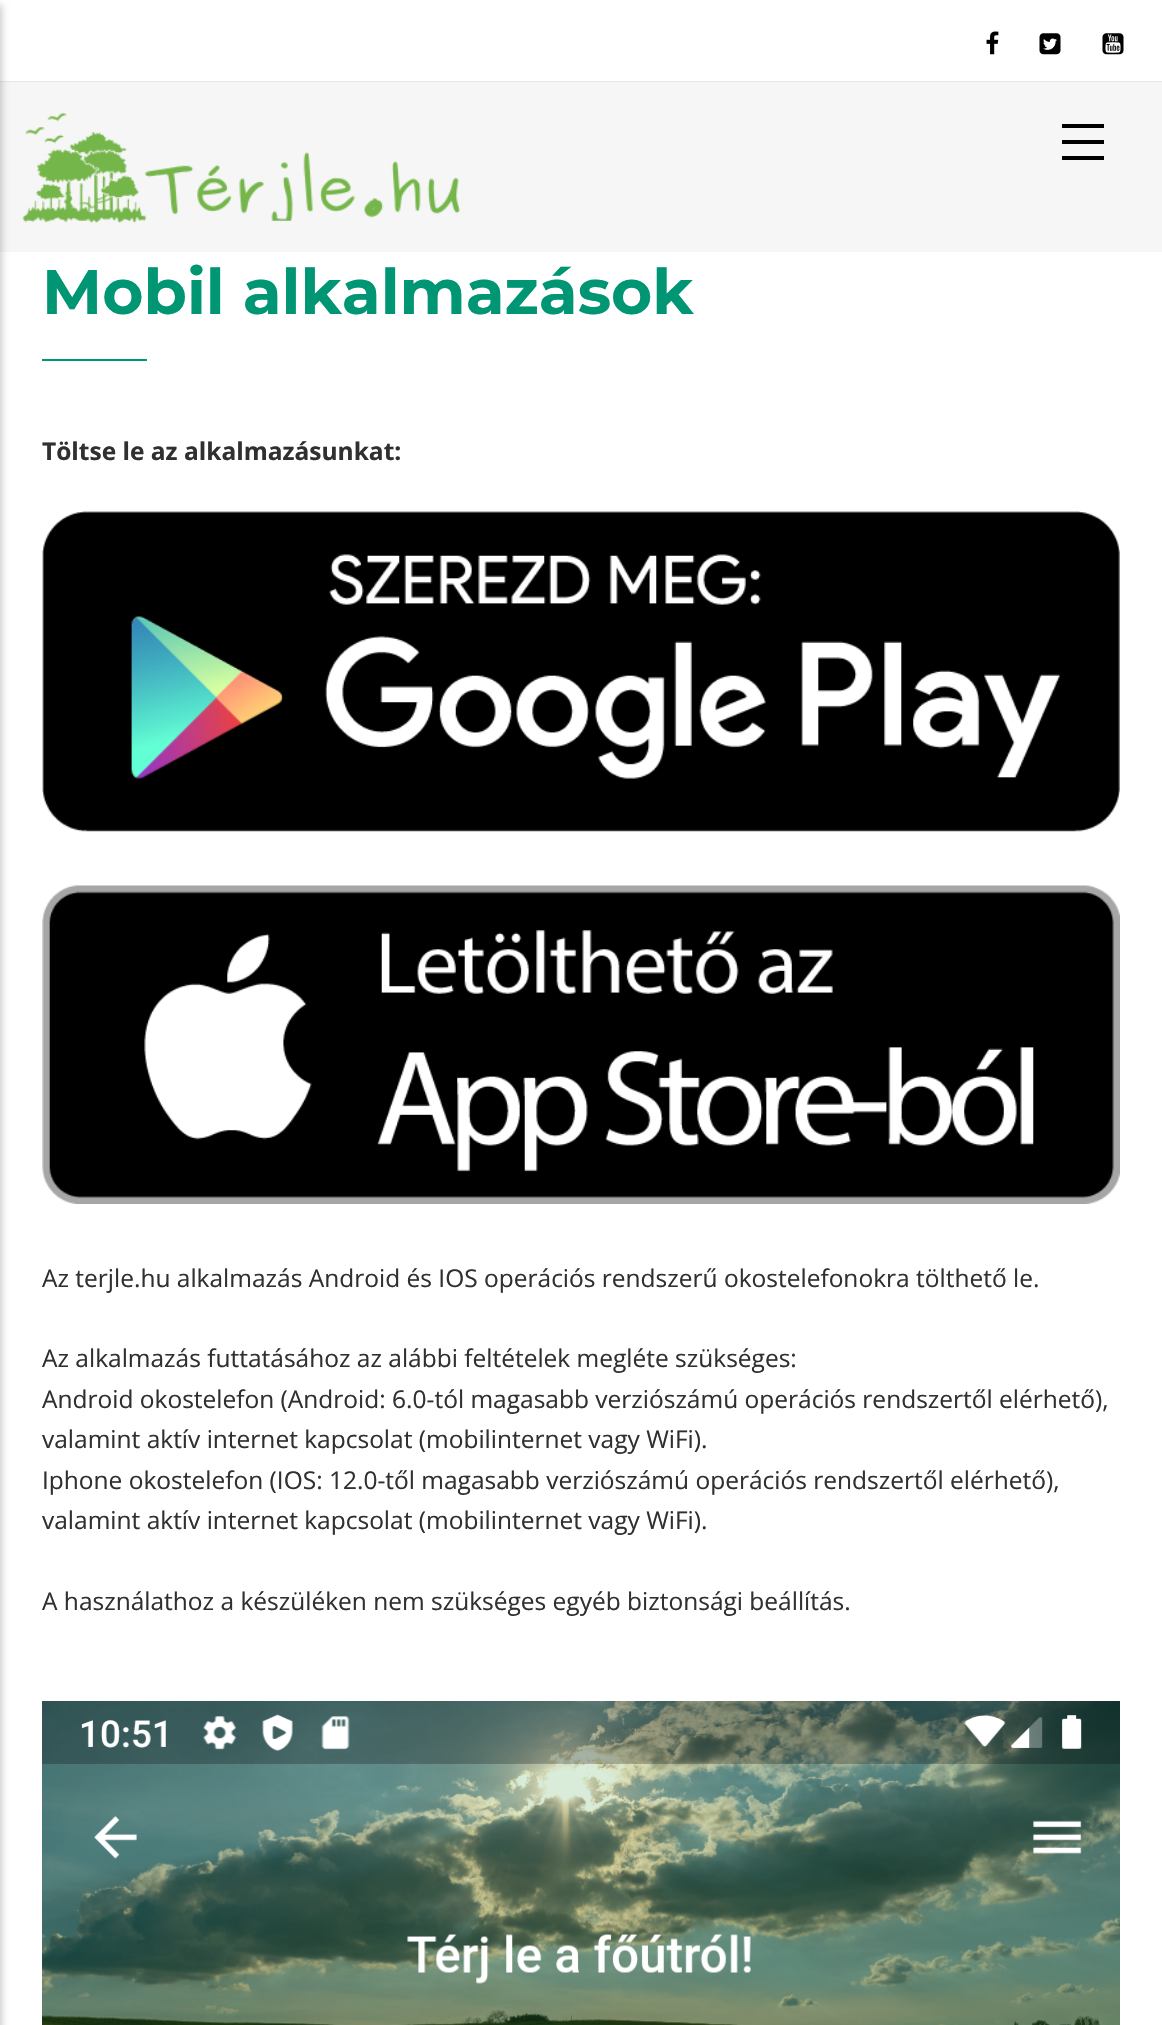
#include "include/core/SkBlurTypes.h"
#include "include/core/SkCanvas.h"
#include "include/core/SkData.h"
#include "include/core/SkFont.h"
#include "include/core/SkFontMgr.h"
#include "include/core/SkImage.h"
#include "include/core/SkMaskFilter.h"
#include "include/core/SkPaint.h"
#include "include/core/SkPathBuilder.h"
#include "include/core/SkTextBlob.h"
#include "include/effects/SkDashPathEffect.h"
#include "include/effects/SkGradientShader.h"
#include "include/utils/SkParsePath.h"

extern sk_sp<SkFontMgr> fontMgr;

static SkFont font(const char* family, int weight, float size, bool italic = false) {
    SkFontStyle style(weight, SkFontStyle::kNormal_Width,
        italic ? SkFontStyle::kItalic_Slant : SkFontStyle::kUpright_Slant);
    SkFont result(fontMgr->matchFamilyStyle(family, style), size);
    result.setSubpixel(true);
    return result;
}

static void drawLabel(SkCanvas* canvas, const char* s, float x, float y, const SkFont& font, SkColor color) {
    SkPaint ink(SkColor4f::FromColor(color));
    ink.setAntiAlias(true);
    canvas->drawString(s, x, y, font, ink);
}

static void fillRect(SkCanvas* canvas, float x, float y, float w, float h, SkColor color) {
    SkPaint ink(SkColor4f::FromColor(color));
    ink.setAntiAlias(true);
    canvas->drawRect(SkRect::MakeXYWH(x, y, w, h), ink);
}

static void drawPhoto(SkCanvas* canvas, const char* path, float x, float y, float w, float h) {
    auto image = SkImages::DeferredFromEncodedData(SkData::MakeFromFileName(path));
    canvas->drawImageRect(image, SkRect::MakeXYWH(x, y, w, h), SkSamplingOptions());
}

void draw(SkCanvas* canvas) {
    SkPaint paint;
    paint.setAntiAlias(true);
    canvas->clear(0xFFFFFFFF);
    fillRect(canvas, 0, 82, 1162, 170, 0xFFF6F6F6);
    fillRect(canvas, 0, 81, 1162, 1, 0xFFE6E6E6);
    paint.setColor(0x33000000);
    paint.setMaskFilter(SkMaskFilter::MakeBlur(kNormal_SkBlurStyle, 3.5f));
    canvas->drawRect(SkRect::MakeXYWH(-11, 5, 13, 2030), paint);
    paint.setMaskFilter(nullptr);
    fillRect(canvas, 1062, 124, 42, 4, 0xFF000000);
    fillRect(canvas, 1062, 140, 42, 4, 0xFF000000);
    fillRect(canvas, 1062, 156, 42, 4, 0xFF000000);
    drawPhoto(canvas, "assets/img1.png", 22, 112, 439, 112);
    drawPhoto(canvas, "assets/img2.png", 986, 31, 13, 24);
    drawPhoto(canvas, "assets/img3.png", 1039, 33, 22, 22);
    drawPhoto(canvas, "assets/img4.png", 1102, 33, 22, 22);
    SkFont font1 = font("Montserrat", 700, 63);
    drawLabel(canvas, "Mobil alkalmazások", 42, 314, font1, 0xFF009673);
    fillRect(canvas, 42, 359, 105, 2, 0xFF009673);
    SkFont font2 = font("Open Sans", 700, 24.5f);
    drawLabel(canvas, "Töltse le az alkalmazásunkat:", 42, 460, font2, 0xFF303030);
    drawPhoto(canvas, "assets/img5.png", 42, 511, 1078, 321);
    drawPhoto(canvas, "assets/img6.png", 42, 885, 1078, 319);
    SkFont font3 = font("Open Sans", 400, 24.5f);
    drawLabel(canvas, "Az terjle.hu alkalmazás Android és IOS operációs rendszerű okostelefonokra tölthető le.", 42, 1287, font3, 0xFF303030);
    drawLabel(canvas, "Az alkalmazás futtatásához az alábbi feltételek megléte szükséges:", 42, 1367, font3, 0xFF303030);
    drawLabel(canvas, "Android okostelefon (Android: 6.0-tól magasabb verziószámú operációs rendszertől elérhető),", 42, 1408, font3, 0xFF303030);
    drawLabel(canvas, "valamint aktív internet kapcsolat (mobilinternet vagy WiFi).", 42, 1448, font3, 0xFF303030);
    drawLabel(canvas, "Iphone okostelefon (IOS: 12.0-től magasabb verziószámú operációs rendszertől elérhető),", 42, 1489, font3, 0xFF303030);
    drawLabel(canvas, "valamint aktív internet kapcsolat (mobilinternet vagy WiFi).", 42, 1529, font3, 0xFF303030);
    drawLabel(canvas, "A használathoz a készüléken nem szükséges egyéb biztonsági beállítás.", 42, 1610, font3, 0xFF303030);
    drawPhoto(canvas, "assets/img7.png", 42, 1701, 1078, 324);
}
